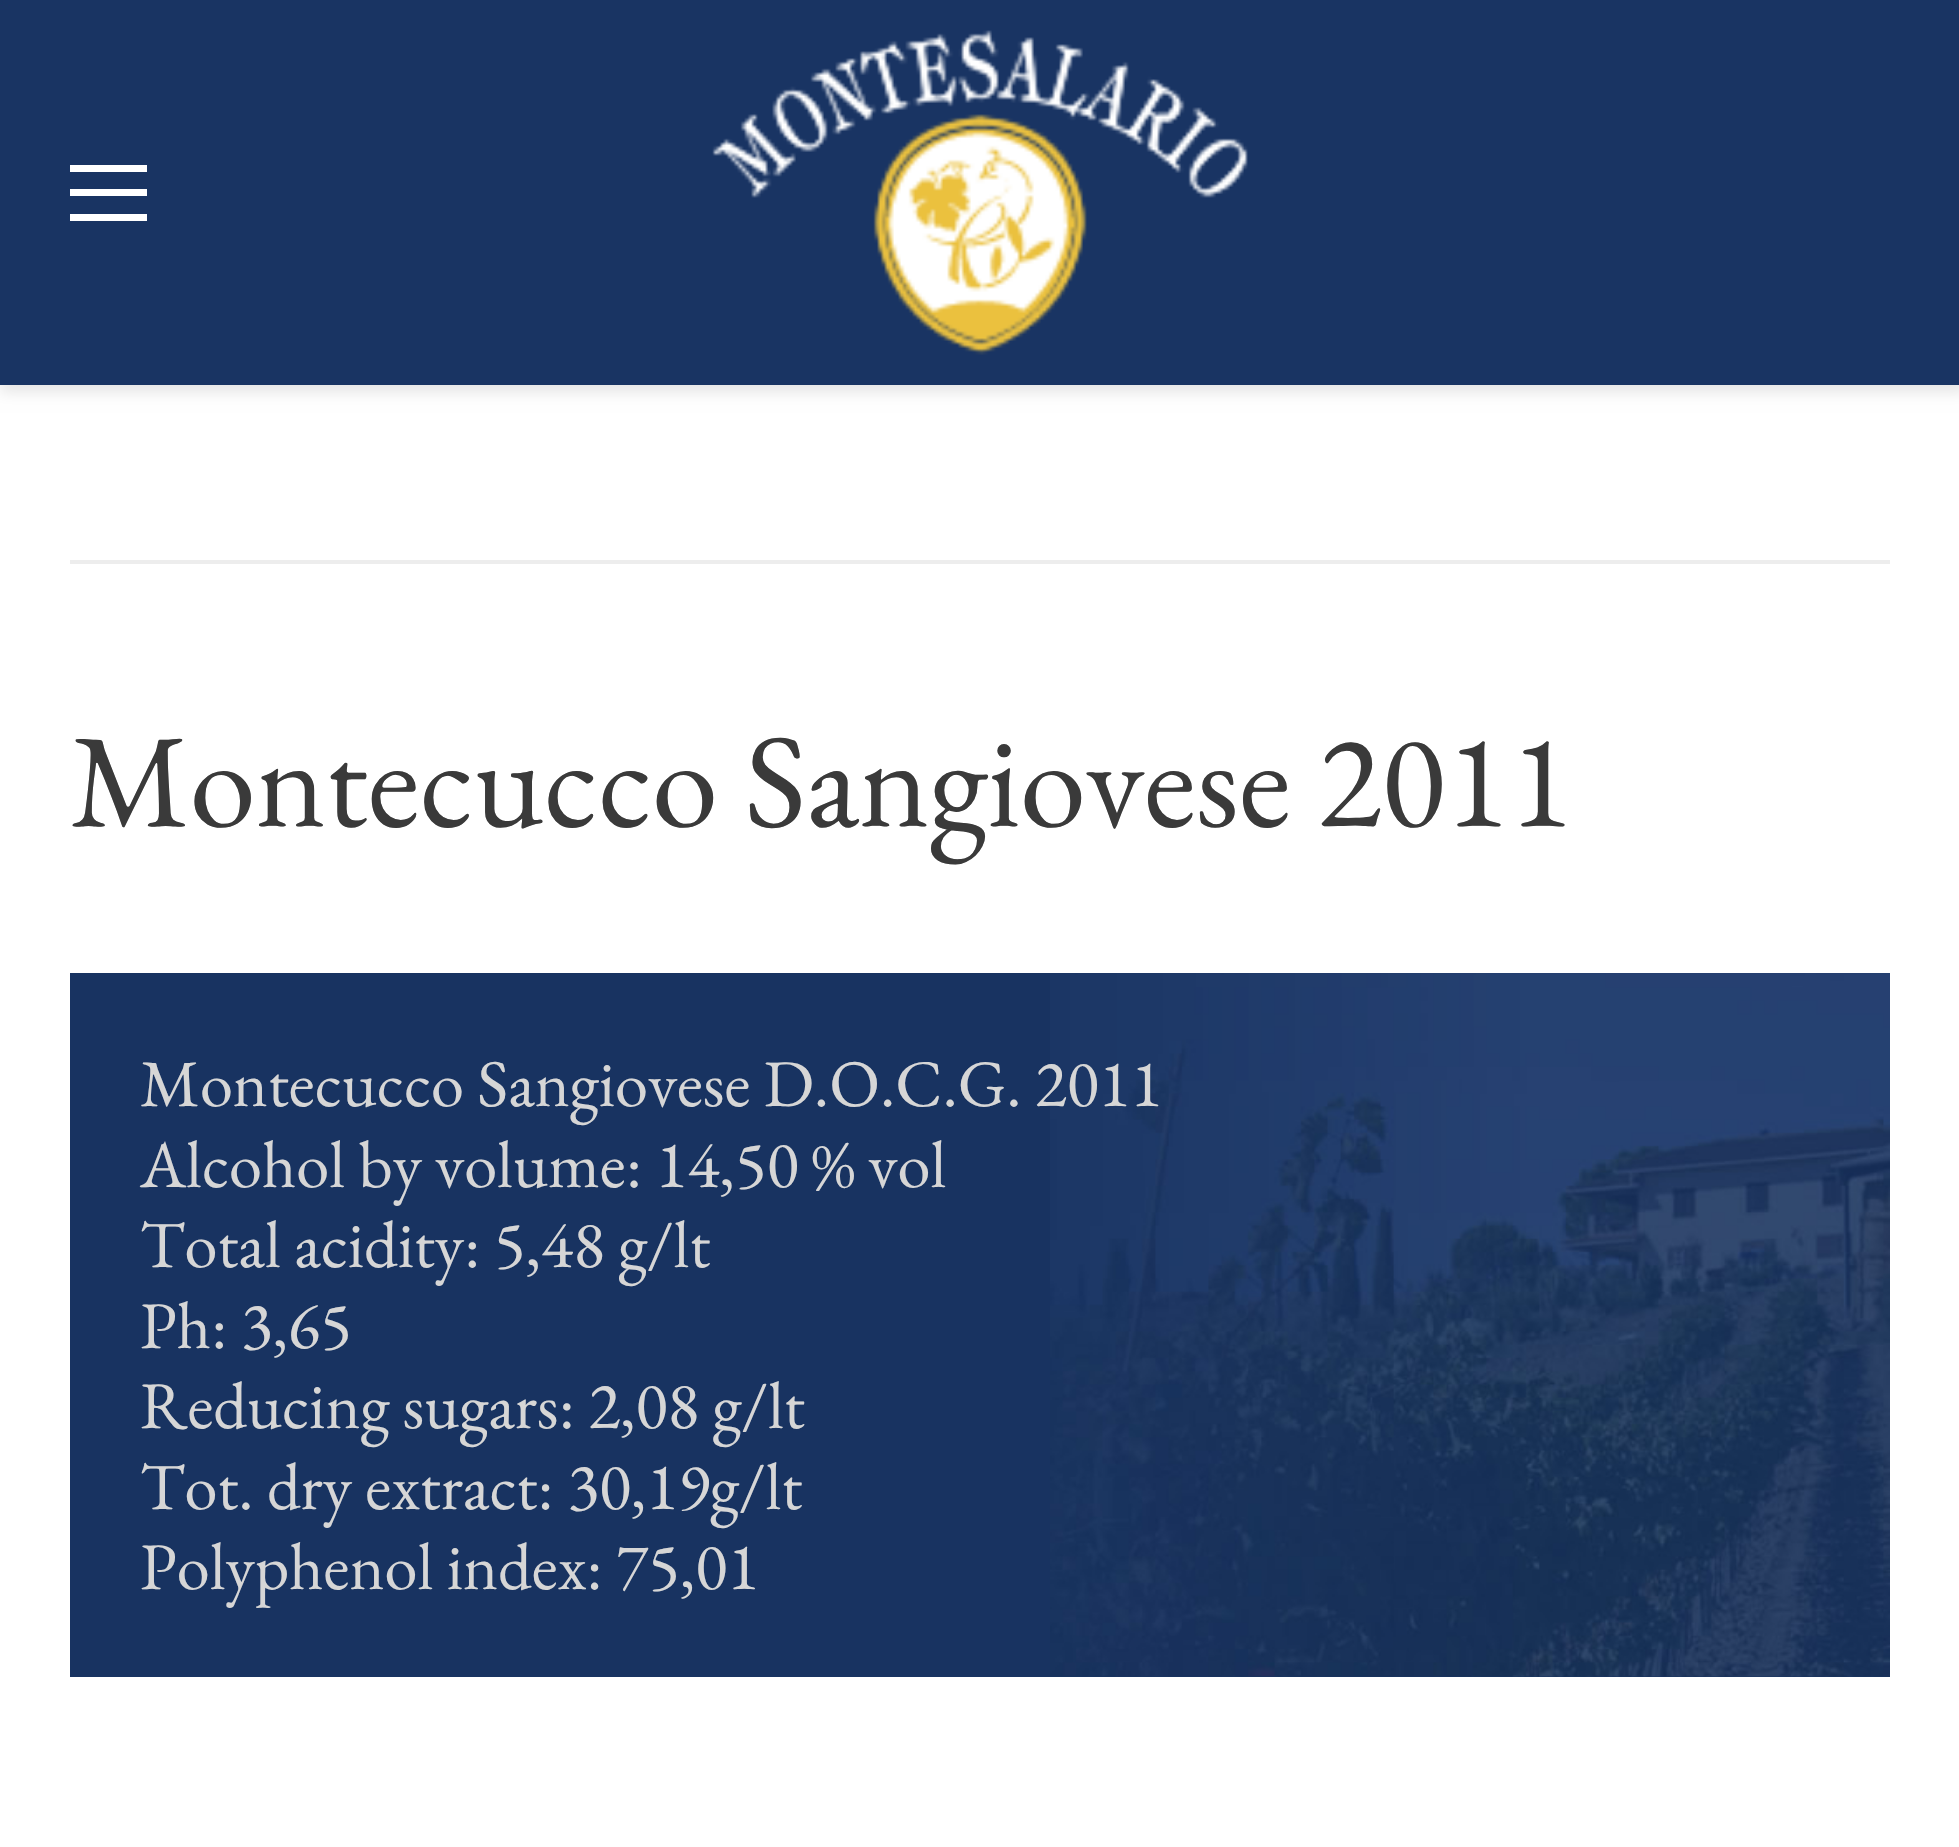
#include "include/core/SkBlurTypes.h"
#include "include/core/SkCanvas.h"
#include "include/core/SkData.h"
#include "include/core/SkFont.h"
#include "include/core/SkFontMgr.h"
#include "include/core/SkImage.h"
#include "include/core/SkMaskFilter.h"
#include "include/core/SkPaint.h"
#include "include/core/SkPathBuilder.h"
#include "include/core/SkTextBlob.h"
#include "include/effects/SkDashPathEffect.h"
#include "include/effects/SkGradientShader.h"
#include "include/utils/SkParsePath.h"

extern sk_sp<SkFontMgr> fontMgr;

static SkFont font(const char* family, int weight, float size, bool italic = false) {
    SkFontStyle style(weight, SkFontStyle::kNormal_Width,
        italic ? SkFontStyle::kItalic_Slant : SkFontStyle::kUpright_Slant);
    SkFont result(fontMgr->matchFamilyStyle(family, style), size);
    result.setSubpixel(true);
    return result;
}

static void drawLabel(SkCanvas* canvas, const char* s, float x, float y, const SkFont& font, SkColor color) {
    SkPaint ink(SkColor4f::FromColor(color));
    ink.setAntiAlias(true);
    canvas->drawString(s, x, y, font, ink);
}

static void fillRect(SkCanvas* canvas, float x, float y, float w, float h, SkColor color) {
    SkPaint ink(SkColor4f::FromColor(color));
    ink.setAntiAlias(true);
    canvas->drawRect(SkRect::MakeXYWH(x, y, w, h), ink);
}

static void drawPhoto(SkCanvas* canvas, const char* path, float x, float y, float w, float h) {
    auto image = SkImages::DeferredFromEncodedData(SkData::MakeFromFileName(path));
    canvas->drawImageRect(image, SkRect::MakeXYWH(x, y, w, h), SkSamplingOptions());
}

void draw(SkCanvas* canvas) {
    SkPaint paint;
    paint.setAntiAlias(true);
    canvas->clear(0xFFFFFFFF);
    paint.setColor(0x1A000000);
    paint.setMaskFilter(SkMaskFilter::MakeBlur(kNormal_SkBlurStyle, 7));
    canvas->drawRect(SkRect::MakeXYWH(0, 0, 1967, 392), paint);
    paint.setMaskFilter(nullptr);
    fillRect(canvas, 0, 0, 1959, 385, 0xFF193463);
    fillRect(canvas, 70, 189, 77, 7, 0xFFFFFFFF);
    fillRect(canvas, 70, 165, 77, 7, 0xFFFFFFFF);
    fillRect(canvas, 70, 214, 77, 7, 0xFFFFFFFF);
    drawPhoto(canvas, "assets/img1.png", 712, 30, 536, 325);
    fillRect(canvas, 70, 560, 1820, 4, 0xFFEDEDED);
    SkFont font1 = font("EB Garamond", 400, 133);
    drawLabel(canvas, "Montecucco Sangiovese 2011", 70, 826, font1, 0xFF3A3A3A);
    fillRect(canvas, 70, 973, 1820, 704, 0xFF183361);
    drawPhoto(canvas, "assets/img2.png", 1050, 973, 840, 704);
    SkFont font2 = font("EB Garamond", 400, 66.5f);
    drawLabel(canvas, "Montecucco Sangiovese D.O.C.G. 2011", 140, 1106, font2, 0xFFD6D6D6);
    drawLabel(canvas, "Alcohol by volume: 14,50 % vol", 140, 1187, font2, 0xFFD6D6D6);
    drawLabel(canvas, "Total acidity: 5,48 g/lt", 140, 1267, font2, 0xFFD6D6D6);
    drawLabel(canvas, "Ph: 3,65", 140, 1348, font2, 0xFFD6D6D6);
    drawLabel(canvas, "Reducing sugars: 2,08 g/lt", 140, 1428, font2, 0xFFD6D6D6);
    drawLabel(canvas, "Tot. dry extract: 30,19g/lt", 140, 1509, font2, 0xFFD6D6D6);
    drawLabel(canvas, "Polyphenol index: 75,01", 140, 1589, font2, 0xFFD6D6D6);
}
